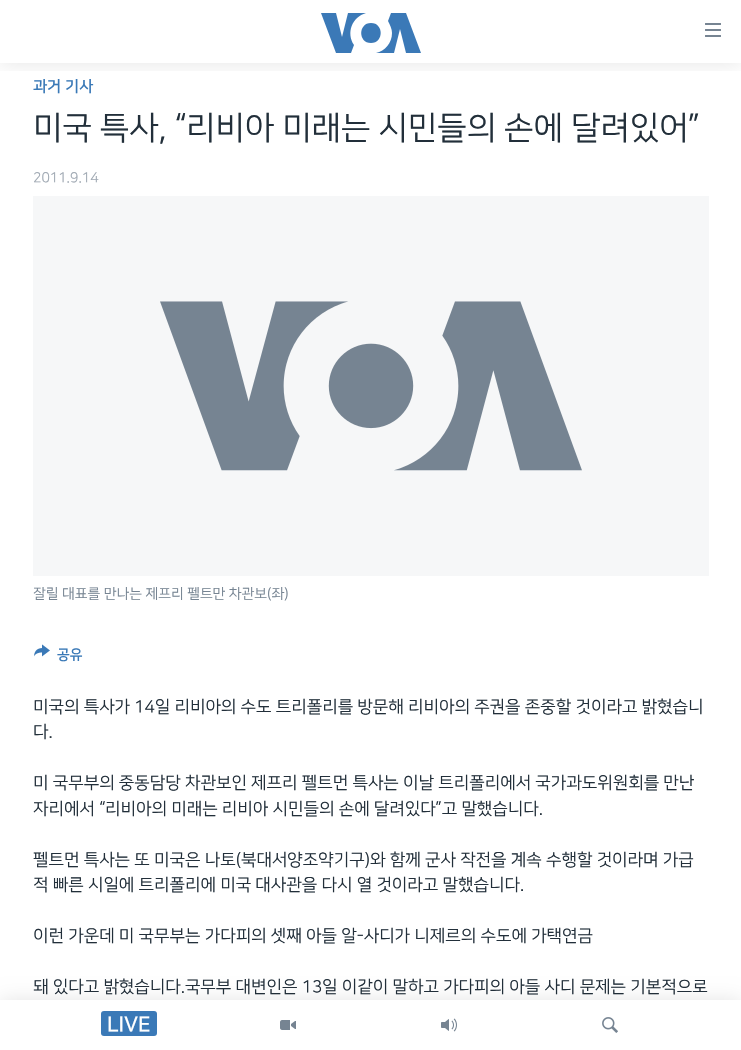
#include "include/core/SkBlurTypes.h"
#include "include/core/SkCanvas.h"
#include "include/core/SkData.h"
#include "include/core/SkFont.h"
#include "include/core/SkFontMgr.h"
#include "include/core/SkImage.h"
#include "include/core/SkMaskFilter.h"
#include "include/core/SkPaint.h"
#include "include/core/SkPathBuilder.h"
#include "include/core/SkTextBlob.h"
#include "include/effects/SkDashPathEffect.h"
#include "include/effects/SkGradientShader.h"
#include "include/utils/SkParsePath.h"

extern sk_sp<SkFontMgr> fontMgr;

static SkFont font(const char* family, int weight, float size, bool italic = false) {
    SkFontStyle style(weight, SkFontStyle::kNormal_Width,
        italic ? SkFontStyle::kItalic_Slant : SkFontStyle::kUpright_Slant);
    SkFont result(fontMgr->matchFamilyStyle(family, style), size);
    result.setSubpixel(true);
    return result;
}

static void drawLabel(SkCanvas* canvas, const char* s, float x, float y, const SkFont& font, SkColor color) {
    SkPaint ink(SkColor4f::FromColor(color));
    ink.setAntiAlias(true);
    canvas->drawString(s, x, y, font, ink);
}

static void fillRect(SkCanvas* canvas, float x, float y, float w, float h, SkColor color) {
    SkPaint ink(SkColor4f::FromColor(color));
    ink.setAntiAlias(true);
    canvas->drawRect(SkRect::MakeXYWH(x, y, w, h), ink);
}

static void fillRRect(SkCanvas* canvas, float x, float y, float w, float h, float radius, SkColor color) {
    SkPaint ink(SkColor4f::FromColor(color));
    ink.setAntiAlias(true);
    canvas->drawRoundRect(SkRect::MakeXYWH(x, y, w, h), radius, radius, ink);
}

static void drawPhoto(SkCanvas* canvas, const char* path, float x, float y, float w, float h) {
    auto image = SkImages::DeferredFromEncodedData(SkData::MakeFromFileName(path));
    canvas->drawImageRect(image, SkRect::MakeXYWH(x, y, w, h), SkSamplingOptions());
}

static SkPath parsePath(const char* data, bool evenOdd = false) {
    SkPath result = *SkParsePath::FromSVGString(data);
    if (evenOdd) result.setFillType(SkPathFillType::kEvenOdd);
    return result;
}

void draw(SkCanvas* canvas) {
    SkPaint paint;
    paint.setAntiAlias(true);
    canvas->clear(0xFFFFFFFF);
    SkFont font1 = font("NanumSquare", 700, 15.5f);
    drawLabel(canvas, "과거 기사", 33, 91, font1, 0xFF3A79B7);
    SkFont font2 = font("NanumSquare", 400, 32.3f);
    drawLabel(canvas, "미국 특사, “리비아 미래는 시민들의 손에 달려있어”", 33, 138, font2, 0xFF222F3A);
    SkFont font3 = font("NanumSquare", 400, 14);
    drawLabel(canvas, "2011.9.14", 33, 182, font3, 0xFFA1AAB4);
    fillRect(canvas, 33, 196, 676, 380, 0xFFF6F7F8);
    drawPhoto(canvas, "assets/img1.png", 160, 301, 422, 170);
    drawLabel(canvas, "잘릴 대표를 만나는 제프리 펠트만 차관보(좌)", 33, 598, font3, 0xFF768492);
    drawPhoto(canvas, "assets/img2.png", 34, 644, 16, 13);
    SkFont font4 = font("NanumSquare", 700, 14);
    drawLabel(canvas, "공유", 57, 659, font4, 0xFF3A79B7);
    SkFont font5 = font("NanumSquare", 400, 17);
    drawLabel(canvas, "미국의 특사가 14일 리비아의 수도 트리폴리를 방문해 리비아의 주권을 존중할 것이라고 밝혔습니", 33, 712, font5, 0xFF222F3A);
    drawLabel(canvas, "다.", 33, 737, font5, 0xFF222F3A);
    drawLabel(canvas, "미 국무부의 중동담당 차관보인 제프리 펠트먼 특사는 이날 트리폴리에서 국가과도위원회를 만난", 33, 788, font5, 0xFF222F3A);
    drawLabel(canvas, "자리에서 “리비아의 미래는 리비아 시민들의 손에 달려있다”고 말했습니다.", 33, 814, font5, 0xFF222F3A);
    drawLabel(canvas, "펠트먼 특사는 또 미국은 나토(북대서양조약기구)와 함께 군사 작전을 계속 수행할 것이라며 가급", 33, 865, font5, 0xFF222F3A);
    drawLabel(canvas, "적 빠른 시일에 트리폴리에 미국 대사관을 다시 열 것이라고 말했습니다.", 33, 890, font5, 0xFF222F3A);
    drawLabel(canvas, "이런 가운데 미 국무부는 가다피의 셋째 아들 알-사디가 니제르의 수도에 가택연금", 33, 941, font5, 0xFF222F3A);
    drawLabel(canvas, "돼 있다고 밝혔습니다.국무부 대변인은 13일 이같이 말하고 가다피의 아들 사디 문제는 기본적으로", 33, 992, font5, 0xFF222F3A);
    canvas->save();
    canvas->clipRect(SkRect::MakeXYWH(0, 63, 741, 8));
    paint.setColor(0x1A000000);
    paint.setMaskFilter(SkMaskFilter::MakeBlur(kNormal_SkBlurStyle, 10));
    canvas->drawRect(SkRect::MakeXYWH(0, 0, 741, 63), paint);
    paint.setMaskFilter(nullptr);
    canvas->restore();
    paint.setColor(0xFF3B79B7);
    canvas->drawPath(parsePath("M354 45L351 53H336L321 13H336L342 37L348 13H366C352 17 346 33 354 45ZM371 23C358 23 358 43 371 43C384 43 384 23 371 23ZM392 33C392 43 385 51 376 53H394L400 29L406 53H421L406 13H391L388 21C390 25 392 29 392 33Z"), paint);
    drawPhoto(canvas, "assets/img3.png", 705, 23, 16, 14);
    paint.setColor(0x1A000000);
    paint.setMaskFilter(SkMaskFilter::MakeBlur(kNormal_SkBlurStyle, 10));
    canvas->drawRect(SkRect::MakeXYWH(0, 1000, 741, 50), paint);
    paint.setMaskFilter(nullptr);
    fillRect(canvas, 0, 1000, 741, 50, 0xFFFFFFFF);
    fillRRect(canvas, 101, 1011, 56, 25, 3, 0xFF3A79B7);
    SkFont font6 = font("NanumSquare", 700, 21);
    drawLabel(canvas, "LIVE", 107, 1031, font6, 0xFFFFFFFF);
    drawPhoto(canvas, "assets/img4.png", 280, 1020, 16, 10);
    drawPhoto(canvas, "assets/img5.png", 441, 1018, 16, 14);
    drawPhoto(canvas, "assets/img6.png", 602, 1017, 16, 16);
}
